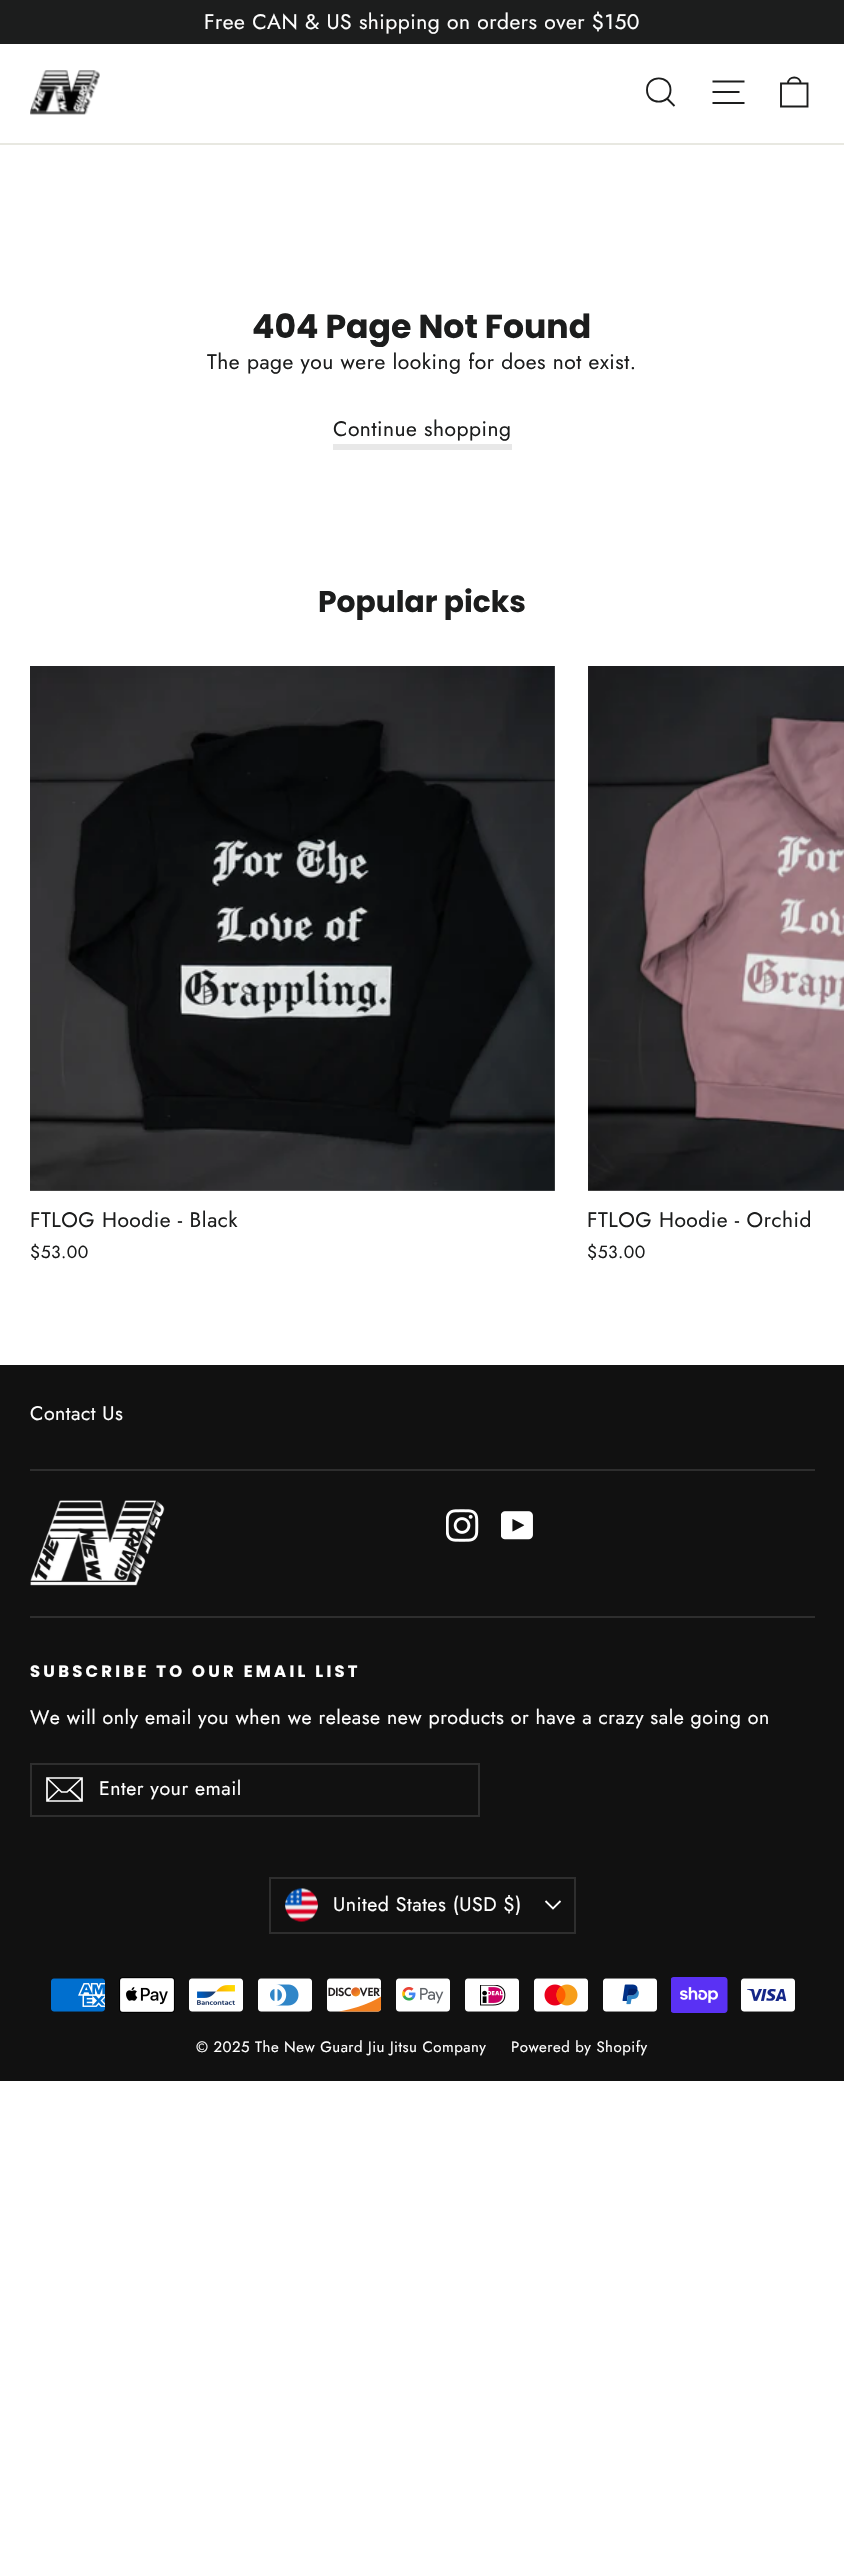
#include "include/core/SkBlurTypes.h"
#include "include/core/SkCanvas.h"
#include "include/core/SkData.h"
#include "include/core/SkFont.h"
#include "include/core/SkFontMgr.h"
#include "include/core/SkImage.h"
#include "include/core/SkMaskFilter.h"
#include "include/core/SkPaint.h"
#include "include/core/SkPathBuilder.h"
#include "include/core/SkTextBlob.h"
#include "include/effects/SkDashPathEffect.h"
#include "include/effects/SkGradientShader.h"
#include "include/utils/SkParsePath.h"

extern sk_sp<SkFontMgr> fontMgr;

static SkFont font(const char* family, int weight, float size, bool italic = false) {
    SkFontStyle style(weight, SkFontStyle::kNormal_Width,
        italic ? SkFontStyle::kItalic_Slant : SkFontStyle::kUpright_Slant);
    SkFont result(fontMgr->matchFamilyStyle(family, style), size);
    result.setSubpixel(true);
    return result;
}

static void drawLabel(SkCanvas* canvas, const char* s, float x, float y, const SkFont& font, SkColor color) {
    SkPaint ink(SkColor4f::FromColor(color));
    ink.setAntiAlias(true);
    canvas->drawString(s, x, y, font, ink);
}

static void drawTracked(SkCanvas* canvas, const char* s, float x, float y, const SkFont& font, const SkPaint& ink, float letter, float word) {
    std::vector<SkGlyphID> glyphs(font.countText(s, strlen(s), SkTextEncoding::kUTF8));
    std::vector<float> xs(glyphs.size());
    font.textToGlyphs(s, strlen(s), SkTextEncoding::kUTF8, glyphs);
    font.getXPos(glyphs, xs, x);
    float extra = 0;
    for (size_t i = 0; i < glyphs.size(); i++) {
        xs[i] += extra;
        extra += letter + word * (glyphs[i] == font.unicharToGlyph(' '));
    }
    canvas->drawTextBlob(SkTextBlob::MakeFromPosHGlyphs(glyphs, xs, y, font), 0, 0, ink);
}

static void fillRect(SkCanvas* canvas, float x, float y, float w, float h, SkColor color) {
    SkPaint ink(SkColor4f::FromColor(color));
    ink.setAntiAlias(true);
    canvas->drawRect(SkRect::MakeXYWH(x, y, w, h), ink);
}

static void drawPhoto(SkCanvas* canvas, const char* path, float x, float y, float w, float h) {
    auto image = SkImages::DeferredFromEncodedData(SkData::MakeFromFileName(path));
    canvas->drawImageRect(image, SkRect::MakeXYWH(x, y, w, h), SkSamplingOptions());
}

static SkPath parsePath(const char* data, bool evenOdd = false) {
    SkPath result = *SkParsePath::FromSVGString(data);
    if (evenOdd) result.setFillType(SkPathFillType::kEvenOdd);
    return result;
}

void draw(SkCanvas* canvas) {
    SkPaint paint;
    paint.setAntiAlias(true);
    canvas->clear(0xFFFFFFFF);
    fillRect(canvas, 0, 0, 844, 44, 0xFF1C1D1D);
    SkFont font1 = font("Jost", 400, 21);
    paint.setColor(0xFFFFFFFF);
    drawTracked(canvas, "Free CAN & US shipping on orders over $150", 204, 29, font1, paint, 0.5f, 0);
    fillRect(canvas, 0, 143, 844, 2, 0xFFE8E8E1);
    drawPhoto(canvas, "assets/img1.png", 30, 70, 70, 45);
    paint.setStroke(true);
    paint.setStrokeWidth(1.9f);
    paint.setColor(0xFF1C1D1D);
    canvas->drawPath(parsePath("M670.5 90C670.5 105.5 647 105.5 647 90C647 74.5 670.5 74.5 670.5 90ZM674.5 106L667 98.5"), paint);
    canvas->drawPath(parsePath("M712.5 81.5H744.5M712.5 92H739.5M712.5 103H744.5"), paint);
    canvas->drawPath(parsePath("M781 83.5H807.5V106.5H781ZM788 83.5C788 75.5 800.5 75.5 800.5 83.5"), paint);
    SkFont font2 = font("Poppins", 700, 33.1f);
    drawLabel(canvas, "404 Page Not Found", 252, 338, font2, 0xFF1C1D1D);
    paint.setStroke(false);
    drawTracked(canvas, "The page you were looking for does not exist.", 207, 369, font1, paint, 0.5f, 0);
    drawTracked(canvas, "Continue shopping", 333, 436, font1, paint, 0.5f, 0);
    fillRect(canvas, 333, 444, 179, 6, 0xFFE8E8E8);
    SkFont font3 = font("Poppins", 700, 29.75f);
    drawLabel(canvas, "Popular picks", 318, 612, font3, 0xFF1C1D1D);
    drawPhoto(canvas, "assets/img2.png", 30, 666, 525, 525);
    drawTracked(canvas, "FTLOG Hoodie - Black", 30, 1227, font1, paint, 0.5f, 0);
    SkFont font4 = font("Jost", 400, 17.5f);
    drawTracked(canvas, "$53.00", 30, 1258, font4, paint, 0.5f, 0);
    drawPhoto(canvas, "assets/img3.png", 588, 666, 256, 525);
    drawTracked(canvas, "FTLOG Hoodie - Orchid", 587, 1227, font1, paint, 0.5f, 0);
    drawTracked(canvas, "$53.00", 587, 1258, font4, paint, 0.5f, 0);
    fillRect(canvas, 0, 1365, 844, 716, 0xFF111111);
    SkFont font5 = font("Jost", 400, 19.55f);
    paint.setColor(0xFFFFFFFF);
    drawTracked(canvas, "Contact Us", 30, 1420, font5, paint, 0.5f, 0);
    fillRect(canvas, 30, 1469, 785, 2, 0xFF2E2E2E);
    drawPhoto(canvas, "assets/img4.png", 30, 1500, 135, 86);
    drawPhoto(canvas, "assets/img5.png", 446, 1509, 33, 33);
    drawPhoto(canvas, "assets/img6.png", 501, 1511, 32, 29);
    fillRect(canvas, 30, 1616, 785, 2, 0xFF2E2E2E);
    SkFont font6 = font("Poppins", 700, 16.4f);
    drawTracked(canvas, "SUBSCRIBE TO OUR EMAIL LIST", 30, 1677, font6, paint, 3.25f, 0);
    drawTracked(canvas, "We will only email you when we release new products or have a crazy sale going on", 30, 1724, font5, paint, 0.5f, 0);
    paint.setStroke(true);
    paint.setStrokeWidth(2);
    paint.setColor(0xFF2E2E2E);
    canvas->drawRect(SkRect::MakeXYWH(31, 1764, 448, 52), paint);
    paint.setStrokeWidth(1.7f);
    paint.setColor(0xFFFFFFFF);
    canvas->drawPath(parsePath("M82 1801H47V1778H82ZM47 1778L61.5 1792H67L82 1778M59 1789.5L47.5 1800.5M81.5 1800.5L69.5 1789.5"), paint);
    paint.setStroke(false);
    drawTracked(canvas, "Enter your email", 99, 1795, font5, paint, 0.5f, 0);
    paint.setStroke(true);
    paint.setStrokeWidth(2);
    paint.setColor(0xFF2E2E2E);
    canvas->drawRect(SkRect::MakeXYWH(270, 1878, 305, 55), paint);
    drawPhoto(canvas, "assets/img7.png", 285, 1888, 33, 34);
    paint.setStroke(false);
    paint.setColor(0xFFFFFFFF);
    drawTracked(canvas, "United States (USD $)", 333, 1911, font5, paint, 0.5f, 0);
    paint.setStroke(true);
    paint.setStrokeWidth(1.8f);
    canvas->drawPath(parsePath("M545.5 1901L553 1908.5L560.5 1901"), paint);
    drawPhoto(canvas, "assets/img8.png", 51, 1978, 54, 34);
    drawPhoto(canvas, "assets/img9.png", 119, 1977, 56, 36);
    drawPhoto(canvas, "assets/img10.png", 189, 1978, 54, 34);
    drawPhoto(canvas, "assets/img11.png", 258, 1978, 54, 34);
    drawPhoto(canvas, "assets/img12.png", 327, 1978, 55, 34);
    drawPhoto(canvas, "assets/img13.png", 396, 1978, 54, 34);
    drawPhoto(canvas, "assets/img14.png", 465, 1978, 54, 34);
    drawPhoto(canvas, "assets/img15.png", 534, 1978, 54, 34);
    drawPhoto(canvas, "assets/img16.png", 603, 1978, 54, 34);
    drawPhoto(canvas, "assets/img17.png", 671, 1977, 57, 36);
    drawPhoto(canvas, "assets/img18.png", 741, 1978, 54, 34);
    SkFont font7 = font("Jost", 400, 15);
    paint.setStroke(false);
    drawTracked(canvas, "© 2025 The New Guard Jiu Jitsu Company", 196, 2052, font7, paint, 0.5f, 0);
    drawTracked(canvas, "Powered by Shopify", 511, 2052, font7, paint, 0.5f, 0);
}
